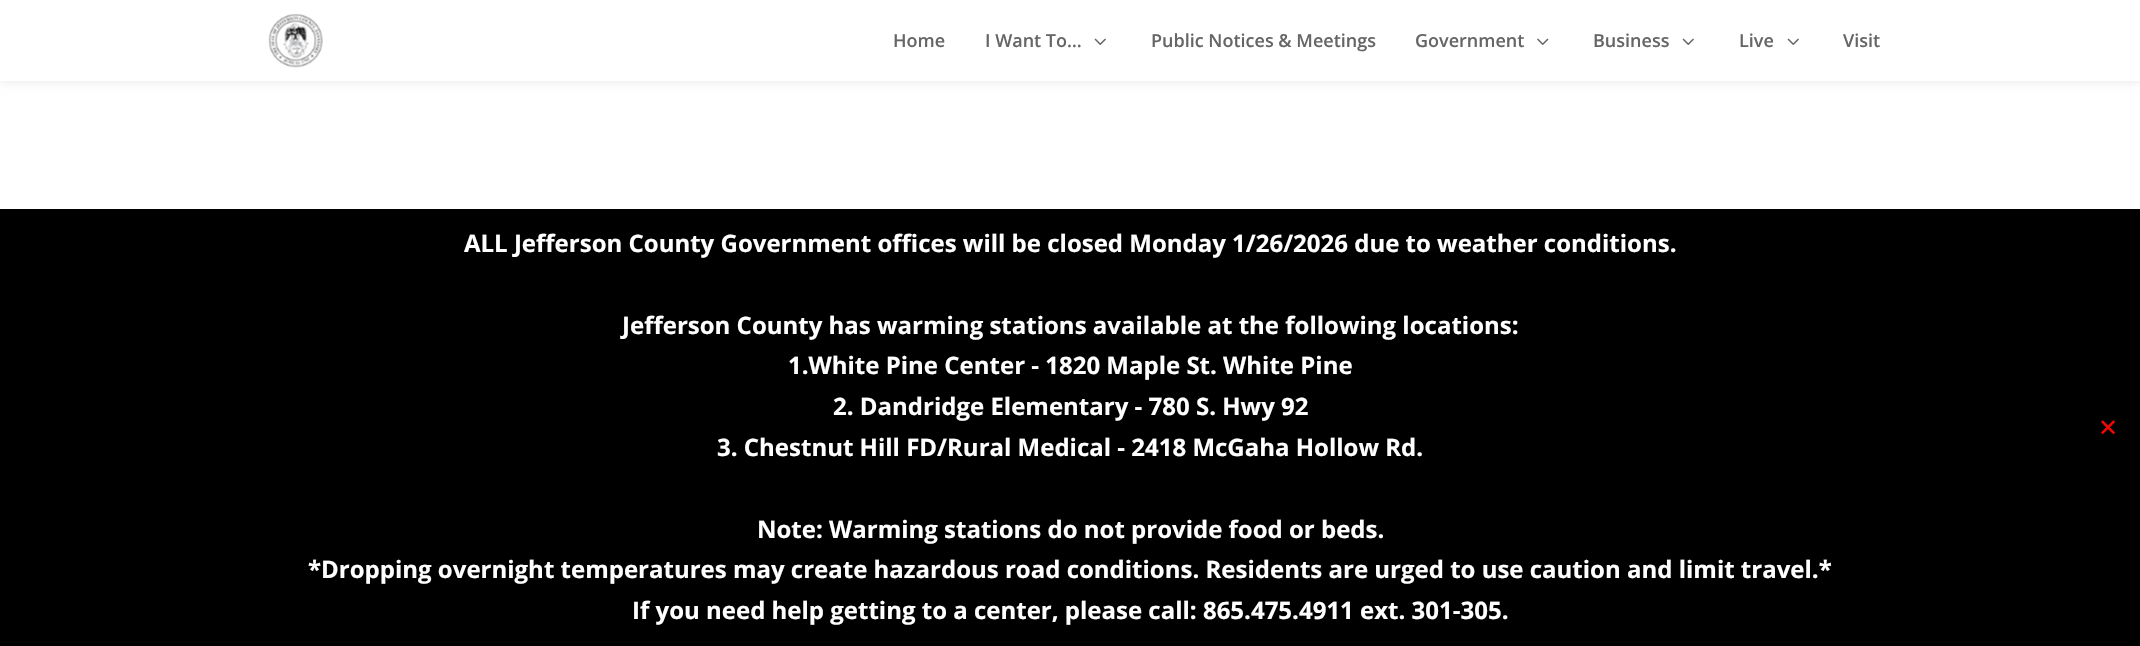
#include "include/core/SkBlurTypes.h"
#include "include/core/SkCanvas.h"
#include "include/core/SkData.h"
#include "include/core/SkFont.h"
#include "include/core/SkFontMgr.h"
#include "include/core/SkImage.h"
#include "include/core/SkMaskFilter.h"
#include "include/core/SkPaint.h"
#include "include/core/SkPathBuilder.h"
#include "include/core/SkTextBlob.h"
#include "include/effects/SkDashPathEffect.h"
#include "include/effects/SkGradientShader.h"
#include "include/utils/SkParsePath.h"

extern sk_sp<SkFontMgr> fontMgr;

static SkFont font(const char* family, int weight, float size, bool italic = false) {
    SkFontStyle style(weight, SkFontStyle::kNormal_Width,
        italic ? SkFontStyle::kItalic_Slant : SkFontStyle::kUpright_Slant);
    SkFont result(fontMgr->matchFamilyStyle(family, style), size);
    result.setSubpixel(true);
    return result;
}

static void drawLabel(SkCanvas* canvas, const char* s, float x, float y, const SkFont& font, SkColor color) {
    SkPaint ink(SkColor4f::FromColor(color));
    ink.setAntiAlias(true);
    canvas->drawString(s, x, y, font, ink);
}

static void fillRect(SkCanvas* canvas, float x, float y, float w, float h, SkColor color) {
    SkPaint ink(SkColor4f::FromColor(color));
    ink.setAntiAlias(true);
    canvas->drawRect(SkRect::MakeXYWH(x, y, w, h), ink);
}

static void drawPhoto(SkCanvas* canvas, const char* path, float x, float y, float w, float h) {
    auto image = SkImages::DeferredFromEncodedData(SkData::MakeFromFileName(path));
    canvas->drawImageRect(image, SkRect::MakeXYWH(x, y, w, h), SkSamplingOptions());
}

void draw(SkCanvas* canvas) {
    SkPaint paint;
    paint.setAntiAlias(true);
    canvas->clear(0xFFFFFFFF);
    paint.setColor(0x1A000000);
    paint.setMaskFilter(SkMaskFilter::MakeBlur(kNormal_SkBlurStyle, 5));
    canvas->drawRect(SkRect::MakeXYWH(0, 0, 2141, 81), paint);
    paint.setMaskFilter(nullptr);
    fillRect(canvas, 0, 0, 2140, 81, 0xFFFFFFFF);
    drawPhoto(canvas, "assets/img1.png", 268, 13, 55, 55);
    SkFont font1 = font("Open Sans", 600, 18);
    drawLabel(canvas, "Home", 893, 47, font1, 0xFF666666);
    drawLabel(canvas, "I Want To…", 985, 47, font1, 0xFF666666);
    drawPhoto(canvas, "assets/img2.png", 1094, 38, 12, 7);
    drawLabel(canvas, "Public Notices & Meetings", 1151, 47, font1, 0xFF666666);
    drawLabel(canvas, "Government", 1415, 47, font1, 0xFF666666);
    drawPhoto(canvas, "assets/img3.png", 1537, 38, 12, 7);
    drawLabel(canvas, "Business", 1593, 47, font1, 0xFF666666);
    drawPhoto(canvas, "assets/img2.png", 1682, 38, 12, 7);
    drawLabel(canvas, "Live", 1739, 47, font1, 0xFF666666);
    drawPhoto(canvas, "assets/img2.png", 1787, 38, 12, 7);
    drawLabel(canvas, "Visit", 1843, 47, font1, 0xFF666666);
    fillRect(canvas, 0, 209, 2140, 437, 0xFF000000);
    SkFont font2 = font("Open Sans", 700, 24);
    drawLabel(canvas, "ALL Jefferson County Government offices will be closed Monday 1/26/2026 due to weather conditions.", 464, 252, font2, 0xFFFFFFFF);
    drawLabel(canvas, "Jefferson County has warming stations available at the following locations:", 622, 334, font2, 0xFFFFFFFF);
    drawLabel(canvas, "1.White Pine Center - 1820 Maple St. White Pine", 788, 374, font2, 0xFFFFFFFF);
    drawLabel(canvas, "2. Dandridge Elementary - 780 S. Hwy 92", 833, 415, font2, 0xFFFFFFFF);
    drawLabel(canvas, "3. Chestnut Hill FD/Rural Medical - 2418 McGaha Hollow Rd.", 717, 456, font2, 0xFFFFFFFF);
    drawLabel(canvas, "Note: Warming stations do not provide food or beds.", 757, 538, font2, 0xFFFFFFFF);
    drawLabel(canvas, "*Dropping overnight temperatures may create hazardous road conditions. Residents are urged to use caution and limit travel.*", 308, 578, font2, 0xFFFFFFFF);
    drawLabel(canvas, "If you need help getting to a center, please call: 865.475.4911 ext. 301-305.", 632, 619, font2, 0xFFFFFFFF);
    SkFont font3 = font("DejaVu Sans", 400, 24);
    drawLabel(canvas, "✕", 2098, 436, font3, 0xFFF20707);
}
